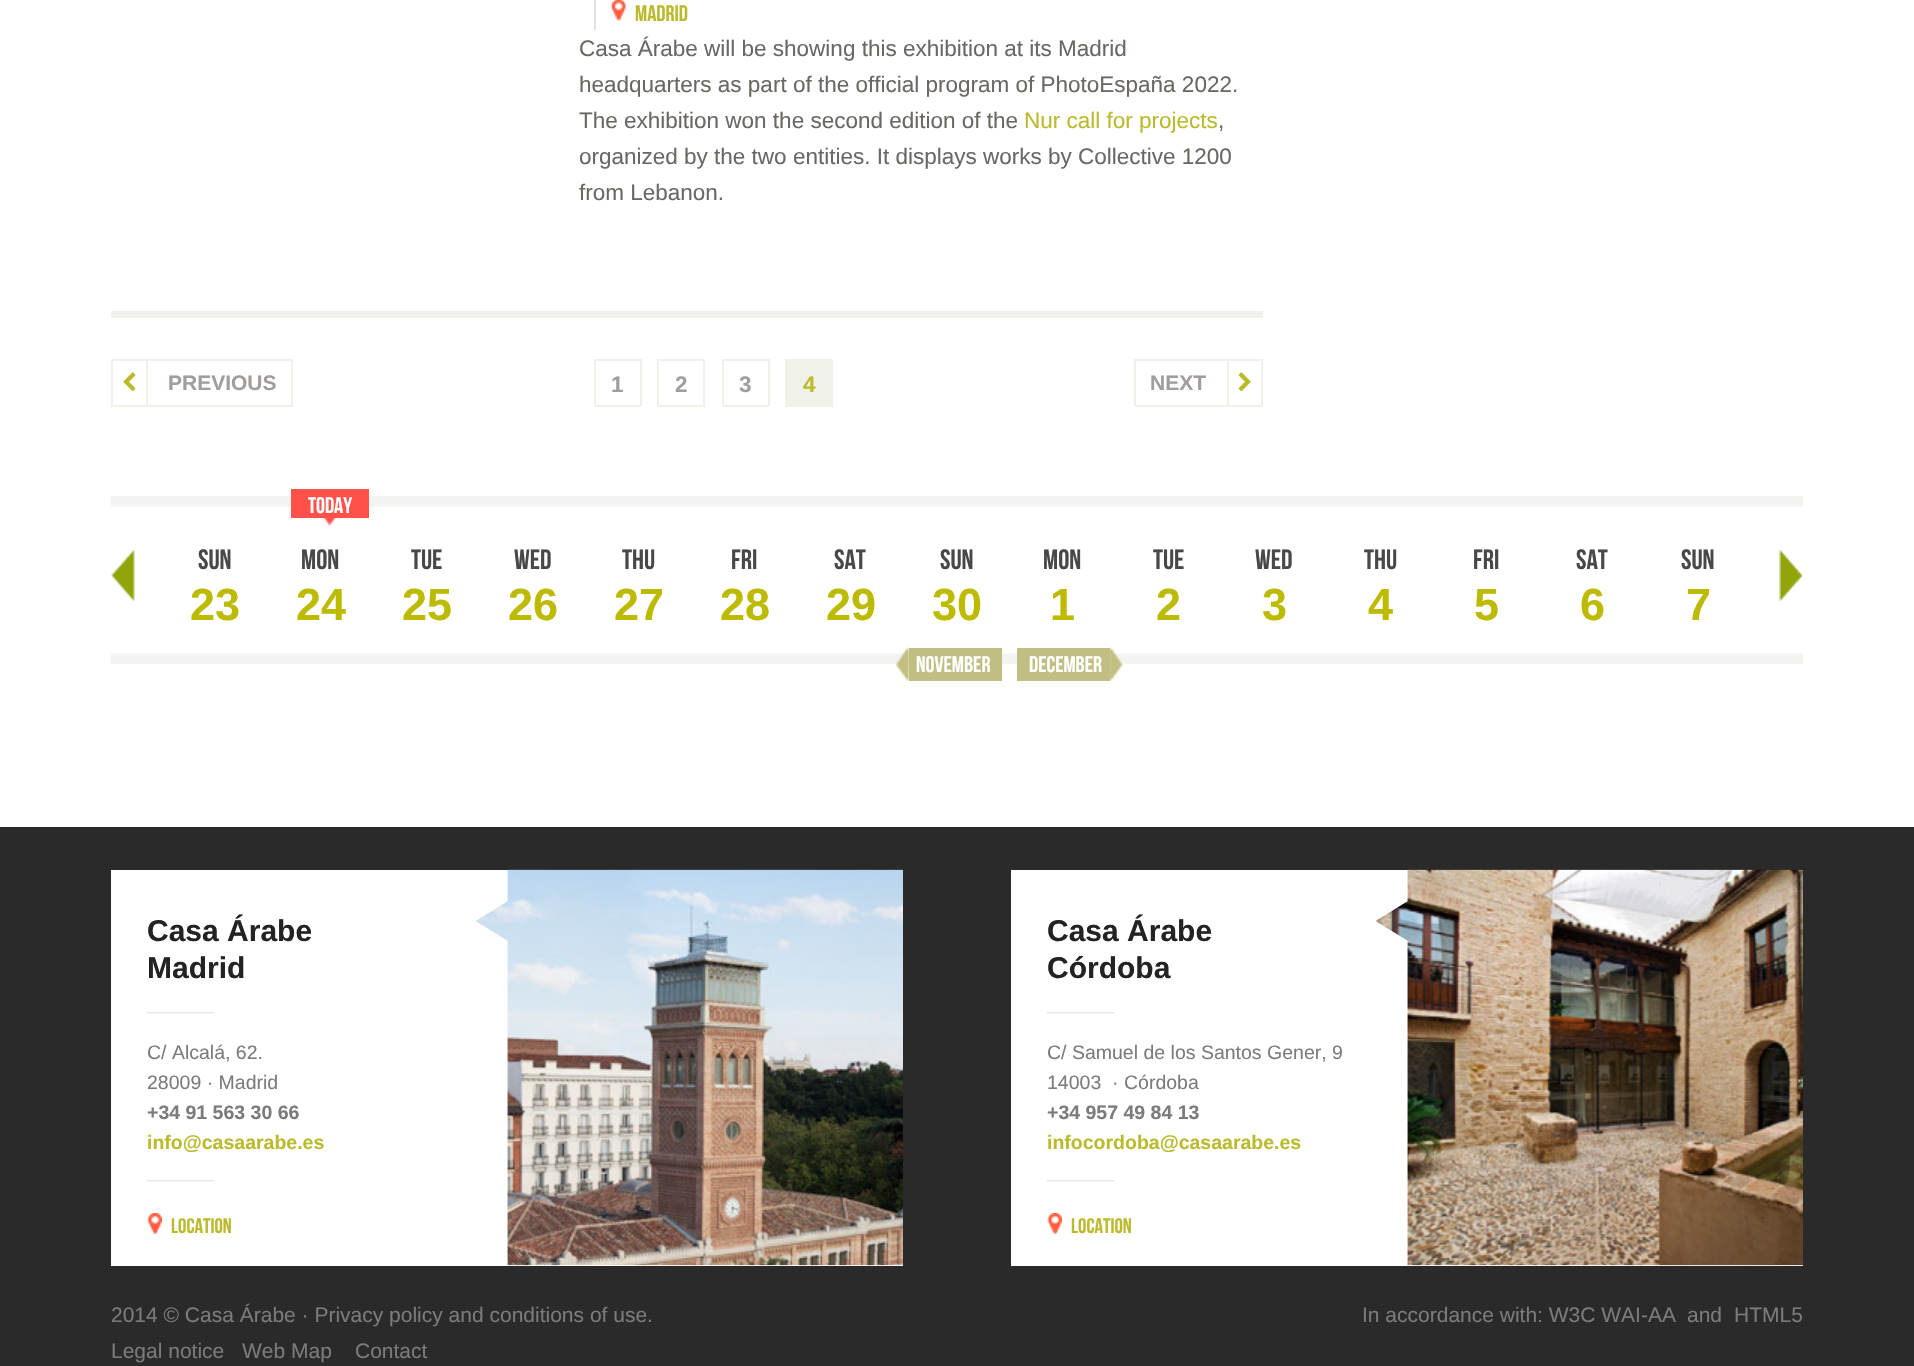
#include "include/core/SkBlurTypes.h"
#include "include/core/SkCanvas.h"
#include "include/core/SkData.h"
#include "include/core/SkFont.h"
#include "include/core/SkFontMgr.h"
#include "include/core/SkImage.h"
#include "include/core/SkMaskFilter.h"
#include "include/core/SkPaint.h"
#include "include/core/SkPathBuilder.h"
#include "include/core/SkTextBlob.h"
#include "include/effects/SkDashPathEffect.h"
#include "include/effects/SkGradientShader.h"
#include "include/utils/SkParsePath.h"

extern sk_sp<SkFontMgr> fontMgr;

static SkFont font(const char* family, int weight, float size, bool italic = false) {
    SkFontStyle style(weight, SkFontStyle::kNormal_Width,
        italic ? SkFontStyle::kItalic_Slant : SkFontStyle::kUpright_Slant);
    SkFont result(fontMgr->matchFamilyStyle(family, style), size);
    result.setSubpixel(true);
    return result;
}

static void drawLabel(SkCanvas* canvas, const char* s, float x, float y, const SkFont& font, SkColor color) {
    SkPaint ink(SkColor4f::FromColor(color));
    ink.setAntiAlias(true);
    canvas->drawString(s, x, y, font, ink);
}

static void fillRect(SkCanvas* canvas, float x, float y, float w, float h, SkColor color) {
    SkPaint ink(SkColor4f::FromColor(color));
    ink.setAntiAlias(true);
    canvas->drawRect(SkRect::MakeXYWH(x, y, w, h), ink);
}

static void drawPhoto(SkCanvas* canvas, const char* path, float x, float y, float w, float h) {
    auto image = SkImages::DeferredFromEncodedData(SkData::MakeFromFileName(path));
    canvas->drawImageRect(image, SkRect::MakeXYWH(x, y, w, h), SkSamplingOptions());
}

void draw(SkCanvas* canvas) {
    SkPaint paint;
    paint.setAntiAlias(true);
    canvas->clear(0xFFFFFFFF);
    fillRect(canvas, 111, 311, 1152, 7, 0xFFF0F1E9);
    drawPhoto(canvas, "assets/img1.png", 610, 0, 16, 21);
    fillRect(canvas, 594, 0, 2, 30, 0xFFE1E1E1);
    SkFont font1 = font("Bebas Neue", 400, 22.5f);
    drawLabel(canvas, "MADRID", 635, 21, font1, 0xFFBBBA2C);
    SkFont font2 = font("Liberation Sans", 400, 22.5f);
    drawLabel(canvas, "Casa Árabe will be showing this exhibition at its Madrid", 579, 56, font2, 0xFF6B6863);
    drawLabel(canvas, "headquarters as part of the official program of PhotoEspaña 2022.", 579, 92, font2, 0xFF6B6863);
    drawLabel(canvas, "The exhibition won the second edition of the", 579, 128, font2, 0xFF6B6863);
    drawLabel(canvas, "Nur call for projects", 1024, 128, font2, 0xFFBBBA2C);
    drawLabel(canvas, ",", 1218, 128, font2, 0xFF6B6863);
    drawLabel(canvas, "organized by the two entities. It displays works by Collective 1200", 579, 164, font2, 0xFF6B6863);
    drawLabel(canvas, "from Lebanon.", 579, 200, font2, 0xFF6B6863);
    paint.setStroke(true);
    paint.setStrokeWidth(2);
    paint.setColor(0xFFF0F1E9);
    canvas->drawRect(SkRect::MakeXYWH(112, 360, 180, 46), paint);
    fillRect(canvas, 146, 360, 2, 45, 0xFFF0F1E9);
    drawPhoto(canvas, "assets/img2.png", 123, 372, 13, 20);
    SkFont font3 = font("Liberation Sans", 700, 21);
    drawLabel(canvas, "PREVIOUS", 168, 390, font3, 0xFFA29D9A);
    canvas->drawRect(SkRect::MakeXYWH(595, 360, 46, 46), paint);
    SkFont font4 = font("Liberation Sans", 700, 22.5f);
    drawLabel(canvas, "1", 611, 392, font4, 0xFFA29D9A);
    canvas->drawRect(SkRect::MakeXYWH(658, 360, 46, 46), paint);
    drawLabel(canvas, "2", 675, 392, font4, 0xFFA29D9A);
    canvas->drawRect(SkRect::MakeXYWH(723, 360, 46, 46), paint);
    drawLabel(canvas, "3", 739, 392, font4, 0xFFA29D9A);
    fillRect(canvas, 785, 359, 48, 48, 0xFFF0F1E9);
    drawLabel(canvas, "4", 803, 392, font4, 0xFFBBBA2C);
    canvas->drawRect(SkRect::MakeXYWH(1135, 360, 127, 46), paint);
    drawLabel(canvas, "NEXT", 1150, 390, font3, 0xFFA29D9A);
    fillRect(canvas, 1227, 360, 2, 45, 0xFFF0F1E9);
    drawPhoto(canvas, "assets/img3.png", 1238, 372, 13, 20);
    drawPhoto(canvas, "assets/img4.png", 111, 496, 1692, 168);
    SkFont font5 = font("Bebas Neue", 400, 28);
    drawLabel(canvas, "Sun", 198, 569, font5, 0xFF4A4747);
    SkFont font6 = font("Liberation Sans", 700, 45);
    drawLabel(canvas, "23", 190, 620, font6, 0xFFBDBB01);
    drawPhoto(canvas, "assets/img5.png", 321, 518, 17, 9);
    fillRect(canvas, 291, 489, 78, 29, 0xFFFF514A);
    drawLabel(canvas, "Today", 308, 513, font1, 0xFFFFFFFF);
    drawLabel(canvas, "Mon", 301, 569, font5, 0xFF4A4747);
    drawLabel(canvas, "24", 296, 620, font6, 0xFFBDBB01);
    drawLabel(canvas, "Tue", 411, 569, font5, 0xFF4A4747);
    drawLabel(canvas, "25", 402, 620, font6, 0xFFBDBB01);
    drawLabel(canvas, "Wed", 514, 569, font5, 0xFF4A4747);
    drawLabel(canvas, "26", 508, 620, font6, 0xFFBDBB01);
    drawLabel(canvas, "Thu", 622, 569, font5, 0xFF4A4747);
    drawLabel(canvas, "27", 614, 620, font6, 0xFFBDBB01);
    drawLabel(canvas, "Fri", 731, 569, font5, 0xFF4A4747);
    drawLabel(canvas, "28", 720, 620, font6, 0xFFBDBB01);
    drawLabel(canvas, "Sat", 834, 569, font5, 0xFF4A4747);
    drawLabel(canvas, "29", 826, 620, font6, 0xFFBDBB01);
    drawLabel(canvas, "Sun", 940, 569, font5, 0xFF4A4747);
    drawLabel(canvas, "30", 932, 620, font6, 0xFFBDBB01);
    drawPhoto(canvas, "assets/img6.png", 895, 647, 14, 34);
    fillRect(canvas, 909, 648, 93, 33, 0xFFC0BF83);
    drawLabel(canvas, "November", 916, 672, font1, 0xFFFFFFFF);
    drawLabel(canvas, "Mon", 1043, 569, font5, 0xFF4A4747);
    drawLabel(canvas, "1", 1050, 620, font6, 0xFFBDBB01);
    drawPhoto(canvas, "assets/img7.png", 1109, 647, 15, 34);
    fillRect(canvas, 1017, 648, 93, 33, 0xFFC0BF83);
    drawLabel(canvas, "December", 1029, 672, font1, 0xFFFFFFFF);
    drawLabel(canvas, "Tue", 1153, 569, font5, 0xFF4A4747);
    drawLabel(canvas, "2", 1156, 620, font6, 0xFFBDBB01);
    drawLabel(canvas, "Wed", 1255, 569, font5, 0xFF4A4747);
    drawLabel(canvas, "3", 1262, 620, font6, 0xFFBDBB01);
    drawLabel(canvas, "Thu", 1364, 569, font5, 0xFF4A4747);
    drawLabel(canvas, "4", 1368, 620, font6, 0xFFBDBB01);
    drawLabel(canvas, "Fri", 1473, 569, font5, 0xFF4A4747);
    drawLabel(canvas, "5", 1474, 620, font6, 0xFFBDBB01);
    drawLabel(canvas, "Sat", 1576, 569, font5, 0xFF4A4747);
    drawLabel(canvas, "6", 1580, 620, font6, 0xFFBDBB01);
    drawLabel(canvas, "Sun", 1681, 569, font5, 0xFF4A4747);
    drawLabel(canvas, "7", 1686, 620, font6, 0xFFBDBB01);
    drawPhoto(canvas, "assets/img8.png", 111, 549, 24, 53);
    drawPhoto(canvas, "assets/img9.png", 1779, 549, 24, 53);
    fillRect(canvas, 0, 827, 1914, 539, 0xFF2A2A2A);
    fillRect(canvas, 111, 870, 792, 396, 0xFFFFFFFF);
    drawPhoto(canvas, "assets/img10.png", 147, 1012, 68, 2);
    SkFont font7 = font("Liberation Sans", 700, 30);
    drawLabel(canvas, "Casa Árabe", 147, 941, font7, 0xFF232323);
    drawLabel(canvas, "Madrid", 147, 978, font7, 0xFF232323);
    SkFont font8 = font("Liberation Sans", 400, 19.5f);
    drawLabel(canvas, "C/ Alcalá, 62.", 147, 1059, font8, 0xFF7B7B7B);
    drawLabel(canvas, "28009 · Madrid", 147, 1089, font8, 0xFF7B7B7B);
    SkFont font9 = font("Liberation Sans", 700, 19.5f);
    drawLabel(canvas, "+34 91 563 30 66", 147, 1119, font9, 0xFF7B7B7B);
    drawLabel(canvas, "info@casaarabe.es", 147, 1149, font9, 0xFFBBBA2C);
    drawPhoto(canvas, "assets/img10.png", 147, 1180, 68, 2);
    drawPhoto(canvas, "assets/img11.png", 147, 1213, 15, 21);
    SkFont font10 = font("Bebas Neue", 400, 21);
    drawLabel(canvas, "Location", 171, 1233, font10, 0xFFBBBA2C);
    drawPhoto(canvas, "assets/img12.png", 476, 869, 427, 397);
    fillRect(canvas, 1011, 870, 792, 396, 0xFFFFFFFF);
    drawPhoto(canvas, "assets/img10.png", 1047, 1012, 68, 2);
    drawLabel(canvas, "Casa Árabe", 1047, 941, font7, 0xFF232323);
    drawLabel(canvas, "Córdoba", 1047, 978, font7, 0xFF232323);
    drawLabel(canvas, "C/ Samuel de los Santos Gener, 9", 1047, 1059, font8, 0xFF7B7B7B);
    drawLabel(canvas, "14003  · Córdoba", 1047, 1089, font8, 0xFF7B7B7B);
    drawLabel(canvas, "+34 957 49 84 13", 1047, 1119, font9, 0xFF7B7B7B);
    drawLabel(canvas, "infocordoba@casaarabe.es", 1047, 1149, font9, 0xFFBBBA2C);
    drawPhoto(canvas, "assets/img10.png", 1047, 1180, 68, 2);
    drawPhoto(canvas, "assets/img13.png", 1047, 1213, 15, 21);
    drawLabel(canvas, "Location", 1071, 1233, font10, 0xFFBBBA2C);
    drawPhoto(canvas, "assets/img14.png", 1376, 869, 427, 397);
    SkFont font11 = font("Liberation Sans", 400, 21);
    drawLabel(canvas, "2014 © Casa Árabe · Privacy policy and conditions of use.", 111, 1322, font11, 0xFF7B7B7B);
    drawLabel(canvas, "Legal notice", 111, 1358, font11, 0xFF7B7B7B);
    drawLabel(canvas, "Web Map", 242, 1358, font11, 0xFF7B7B7B);
    drawLabel(canvas, "Contact", 355, 1358, font11, 0xFF7B7B7B);
    drawLabel(canvas, "In accordance with: W3C WAI-AA", 1362, 1322, font11, 0xFF7B7B7B);
    drawLabel(canvas, "and", 1687, 1322, font11, 0xFF7B7B7B);
    drawLabel(canvas, "HTML5", 1734, 1322, font11, 0xFF7B7B7B);
}
